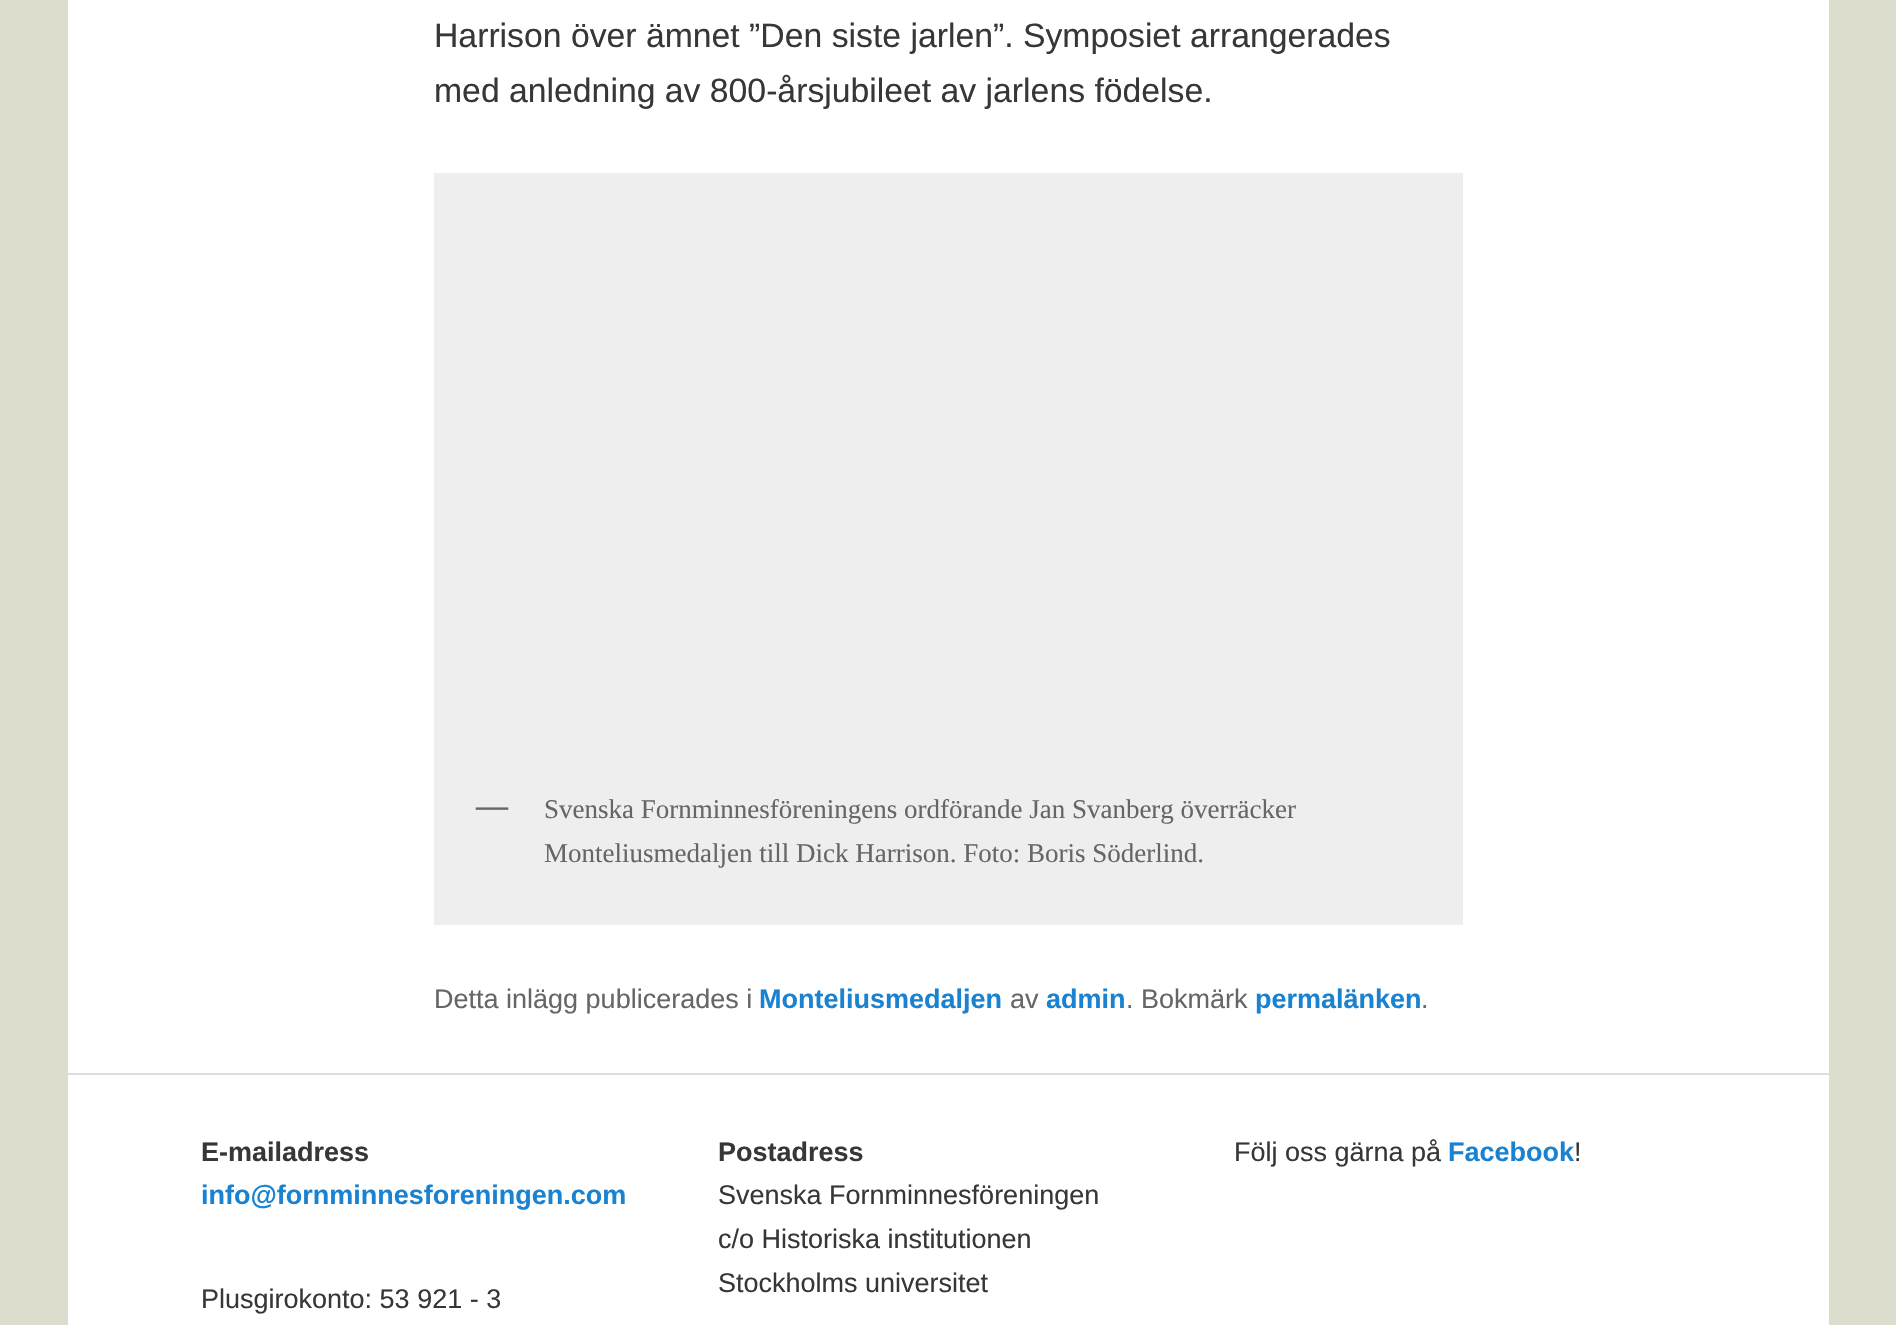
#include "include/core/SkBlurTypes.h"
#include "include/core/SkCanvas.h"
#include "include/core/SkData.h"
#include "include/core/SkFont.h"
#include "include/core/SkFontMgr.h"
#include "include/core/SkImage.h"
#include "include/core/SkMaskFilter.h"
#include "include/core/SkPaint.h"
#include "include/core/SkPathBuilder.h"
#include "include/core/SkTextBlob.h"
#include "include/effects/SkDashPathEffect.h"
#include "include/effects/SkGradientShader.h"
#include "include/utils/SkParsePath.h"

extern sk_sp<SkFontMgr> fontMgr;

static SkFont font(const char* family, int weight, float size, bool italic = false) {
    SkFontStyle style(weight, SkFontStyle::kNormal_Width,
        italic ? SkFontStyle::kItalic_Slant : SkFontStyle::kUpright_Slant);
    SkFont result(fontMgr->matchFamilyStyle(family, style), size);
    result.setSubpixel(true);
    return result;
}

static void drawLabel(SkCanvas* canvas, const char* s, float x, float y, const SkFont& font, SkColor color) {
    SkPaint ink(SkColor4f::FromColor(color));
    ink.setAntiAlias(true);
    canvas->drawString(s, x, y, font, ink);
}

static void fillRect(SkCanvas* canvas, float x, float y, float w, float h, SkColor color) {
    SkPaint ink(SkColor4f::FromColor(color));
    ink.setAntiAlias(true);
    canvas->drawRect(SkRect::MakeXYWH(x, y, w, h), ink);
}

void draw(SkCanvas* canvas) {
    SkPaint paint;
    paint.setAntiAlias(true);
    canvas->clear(0xFFDDDDCE);
    fillRect(canvas, 68, 0, 1761, 1325, 0xFFFFFFFF);
    SkFont font1 = font("Liberation Sans", 400, 33.75f);
    drawLabel(canvas, "Harrison över ämnet ”Den siste jarlen”. Symposiet arrangerades", 434, 47, font1, 0xFF373737);
    drawLabel(canvas, "med anledning av 800-årsjubileet av jarlens födelse.", 434, 102, font1, 0xFF373737);
    fillRect(canvas, 434, 173, 1029, 752, 0xFFEEEEEE);
    SkFont font2 = font("Liberation Serif", 700, 32);
    drawLabel(canvas, "—", 476, 816, font2, 0xFF666666);
    SkFont font3 = font("Liberation Serif", 400, 27);
    drawLabel(canvas, "Svenska Fornminnesföreningens ordförande Jan Svanberg överräcker", 544, 818, font3, 0xFF666666);
    drawLabel(canvas, "Monteliusmedaljen till Dick Harrison. Foto: Boris Söderlind.", 544, 862, font3, 0xFF666666);
    SkFont font4 = font("Liberation Sans", 400, 27);
    drawLabel(canvas, "Detta inlägg publicerades i", 434, 1008, font4, 0xFF666666);
    SkFont font5 = font("Liberation Sans", 700, 27);
    drawLabel(canvas, "Monteliusmedaljen", 759, 1008, font5, 0xFF1982D1);
    drawLabel(canvas, "av", 1010, 1008, font4, 0xFF666666);
    drawLabel(canvas, "admin", 1046, 1008, font5, 0xFF1982D1);
    drawLabel(canvas, ". Bokmärk", 1126, 1008, font4, 0xFF666666);
    drawLabel(canvas, "permalänken", 1255, 1008, font5, 0xFF1982D1);
    drawLabel(canvas, ".", 1421, 1008, font4, 0xFF666666);
    fillRect(canvas, 68, 1073, 1761, 2, 0xFFDDDDDD);
    drawLabel(canvas, "E-mailadress", 201, 1161, font5, 0xFF373737);
    drawLabel(canvas, "info@fornminnesforeningen.com", 201, 1204, font5, 0xFF1982D1);
    drawLabel(canvas, "Plusgirokonto: 53 921 - 3", 201, 1308, font4, 0xFF373737);
    drawLabel(canvas, "Postadress", 718, 1161, font5, 0xFF373737);
    drawLabel(canvas, "Svenska Fornminnesföreningen", 718, 1204, font4, 0xFF373737);
    drawLabel(canvas, "c/o Historiska institutionen", 718, 1248, font4, 0xFF373737);
    drawLabel(canvas, "Stockholms universitet", 718, 1292, font4, 0xFF373737);
    drawLabel(canvas, "Följ oss gärna på", 1234, 1161, font4, 0xFF373737);
    drawLabel(canvas, "Facebook", 1448, 1161, font5, 0xFF1982D1);
    drawLabel(canvas, "!", 1574, 1161, font4, 0xFF373737);
}
